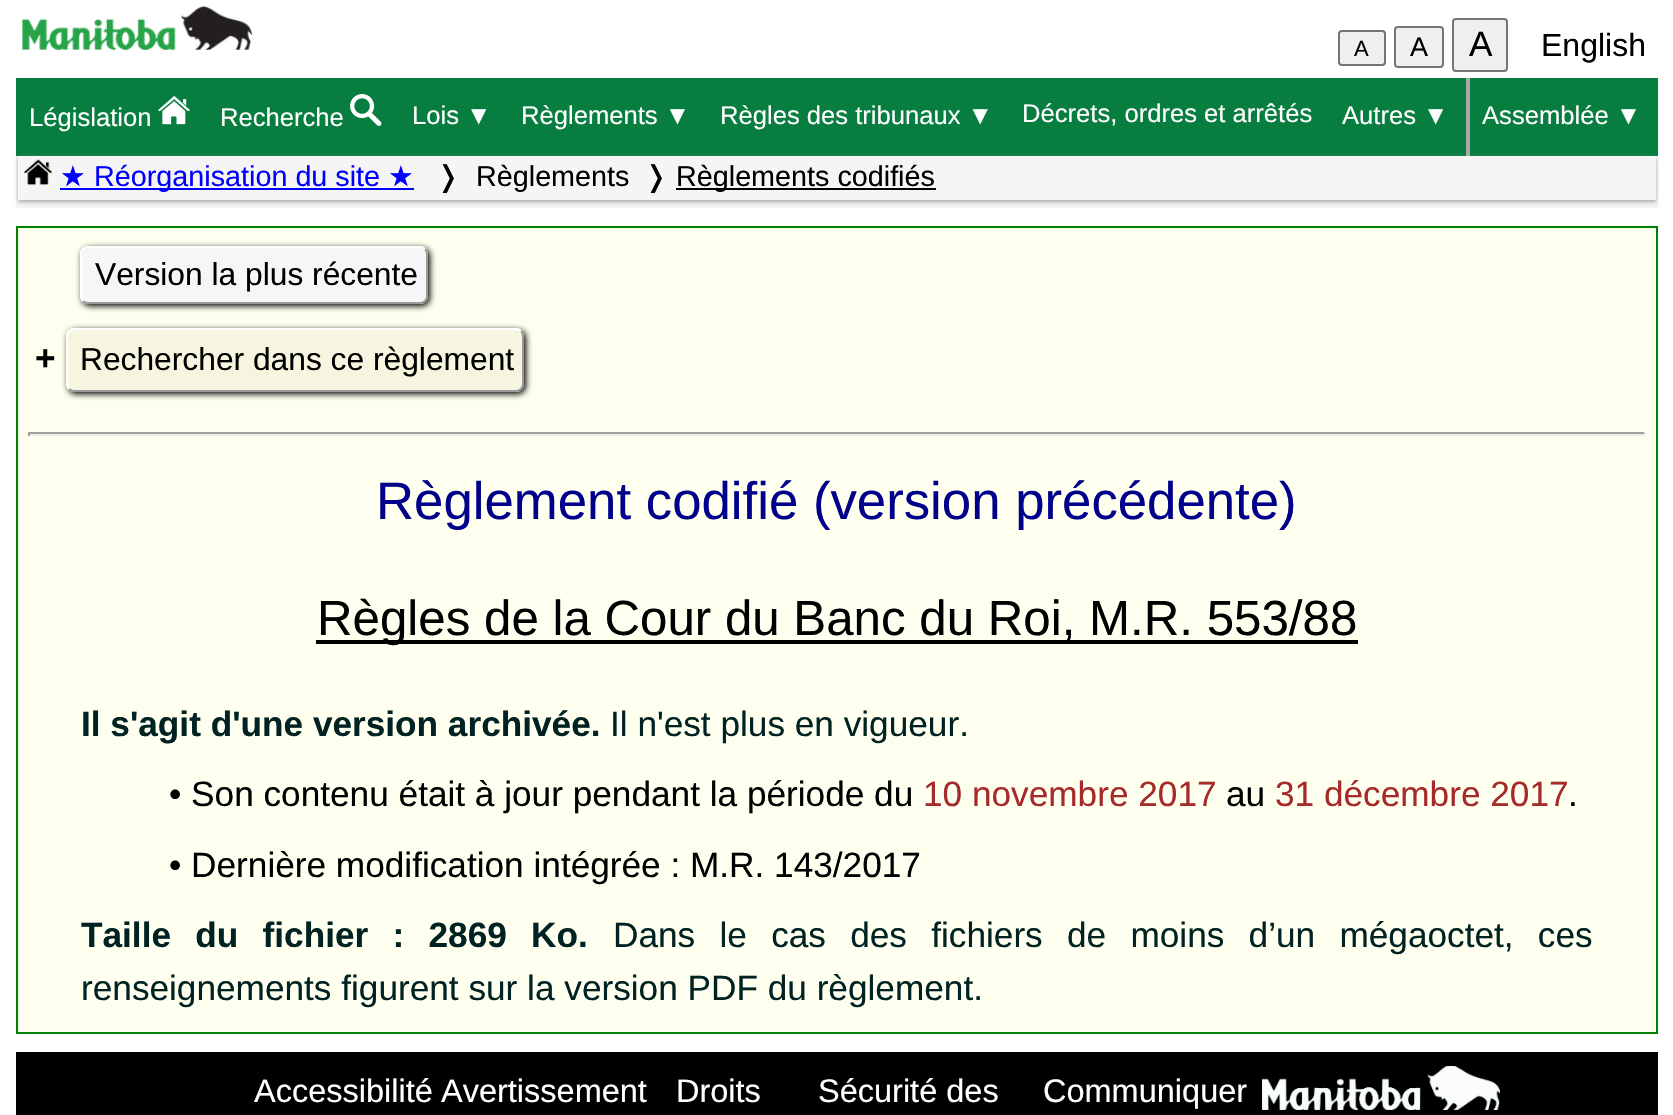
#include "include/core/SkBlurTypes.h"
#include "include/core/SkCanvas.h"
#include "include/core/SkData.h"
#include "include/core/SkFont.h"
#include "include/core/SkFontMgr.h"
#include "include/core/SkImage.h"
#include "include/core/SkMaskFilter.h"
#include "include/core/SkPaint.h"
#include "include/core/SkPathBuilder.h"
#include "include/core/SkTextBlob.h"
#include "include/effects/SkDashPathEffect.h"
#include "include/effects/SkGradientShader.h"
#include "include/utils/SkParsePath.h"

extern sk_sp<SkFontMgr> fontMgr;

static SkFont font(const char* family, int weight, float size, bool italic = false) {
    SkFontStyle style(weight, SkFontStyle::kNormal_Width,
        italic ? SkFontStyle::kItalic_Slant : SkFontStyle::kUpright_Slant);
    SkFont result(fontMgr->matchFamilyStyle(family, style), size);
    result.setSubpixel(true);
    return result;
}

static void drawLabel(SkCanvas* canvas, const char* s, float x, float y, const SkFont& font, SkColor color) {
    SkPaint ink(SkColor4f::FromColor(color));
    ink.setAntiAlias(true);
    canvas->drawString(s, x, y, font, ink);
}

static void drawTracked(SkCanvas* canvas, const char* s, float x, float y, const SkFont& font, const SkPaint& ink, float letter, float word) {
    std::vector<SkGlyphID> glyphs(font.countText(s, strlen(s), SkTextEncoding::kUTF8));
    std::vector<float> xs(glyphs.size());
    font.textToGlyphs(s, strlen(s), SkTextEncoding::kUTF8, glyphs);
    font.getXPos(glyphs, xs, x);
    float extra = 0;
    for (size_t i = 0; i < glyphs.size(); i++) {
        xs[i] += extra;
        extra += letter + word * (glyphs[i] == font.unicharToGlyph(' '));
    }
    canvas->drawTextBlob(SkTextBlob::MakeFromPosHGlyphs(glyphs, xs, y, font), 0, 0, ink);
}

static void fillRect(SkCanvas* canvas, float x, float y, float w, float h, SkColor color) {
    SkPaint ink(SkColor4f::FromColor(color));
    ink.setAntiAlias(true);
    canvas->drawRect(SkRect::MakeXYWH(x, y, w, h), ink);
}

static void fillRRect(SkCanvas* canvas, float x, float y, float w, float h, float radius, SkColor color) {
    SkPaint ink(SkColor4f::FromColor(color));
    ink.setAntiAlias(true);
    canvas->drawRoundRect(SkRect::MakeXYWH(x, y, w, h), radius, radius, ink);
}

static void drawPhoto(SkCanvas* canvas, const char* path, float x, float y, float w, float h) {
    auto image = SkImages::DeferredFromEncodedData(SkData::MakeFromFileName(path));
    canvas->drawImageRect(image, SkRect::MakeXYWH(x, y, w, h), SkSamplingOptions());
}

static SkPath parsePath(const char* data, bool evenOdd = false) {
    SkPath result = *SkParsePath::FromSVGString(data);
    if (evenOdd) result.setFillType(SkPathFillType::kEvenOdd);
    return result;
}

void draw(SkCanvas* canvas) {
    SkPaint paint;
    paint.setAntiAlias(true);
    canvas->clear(0xFFFFFFFF);
    drawPhoto(canvas, "assets/img1.png", 22, 6, 230, 44);
    paint.setColor(0xFFEFEFEF);
    canvas->drawRoundRect(SkRect::MakeXYWH(1339, 31, 46, 34), 3, 3, paint);
    paint.setStroke(true);
    paint.setStrokeWidth(2);
    paint.setColor(0xFF767676);
    canvas->drawRoundRect(SkRect::MakeXYWH(1339, 31, 46, 34), 3, 3, paint);
    SkFont font1 = font("Liberation Sans", 400, 22);
    drawLabel(canvas, "A", 1354, 56, font1, 0xFF000000);
    paint.setStroke(false);
    paint.setColor(0xFFEFEFEF);
    canvas->drawRoundRect(SkRect::MakeXYWH(1395, 27, 48, 40), 3, 3, paint);
    paint.setStroke(true);
    paint.setColor(0xFF767676);
    canvas->drawRoundRect(SkRect::MakeXYWH(1395, 27, 48, 40), 3, 3, paint);
    SkFont font2 = font("Liberation Sans", 400, 27);
    drawLabel(canvas, "A", 1410, 56, font2, 0xFF000000);
    paint.setStroke(false);
    paint.setColor(0xFFEFEFEF);
    canvas->drawRoundRect(SkRect::MakeXYWH(1453, 19, 54, 52), 3, 3, paint);
    paint.setStroke(true);
    paint.setColor(0xFF767676);
    canvas->drawRoundRect(SkRect::MakeXYWH(1453, 19, 54, 52), 3, 3, paint);
    SkFont font3 = font("Liberation Sans", 400, 35.2f);
    drawLabel(canvas, "A", 1469, 56, font3, 0xFF000000);
    SkFont font4 = font("Liberation Sans", 400, 32);
    drawLabel(canvas, "English", 1541, 56, font4, 0xFF000000);
    fillRect(canvas, 16, 156, 1642, 52, 0xFFF5F5F5);
    fillRect(canvas, 16, 78, 1642, 78, 0xFF077D40);
    SkFont font5 = font("Liberation Sans", 400, 25.6f);
    drawLabel(canvas, "Législation", 29, 126, font5, 0xFFFFFFFF);
    drawPhoto(canvas, "assets/img2.png", 158, 95, 32, 30);
    drawLabel(canvas, "Recherche", 220, 126, font5, 0xFFFFFFFF);
    drawPhoto(canvas, "assets/img3.png", 350, 94, 32, 32);
    drawLabel(canvas, "Lois ▼", 412, 124, font5, 0xFFFFFFFF);
    drawLabel(canvas, "Règlements ▼", 521, 124, font5, 0xFFFFFFFF);
    drawLabel(canvas, "Règles des tribunaux ▼", 720, 124, font5, 0xFFFFFFFF);
    drawLabel(canvas, "Décrets, ordres et arrêtés", 1022, 122, font5, 0xFFFFFFFF);
    drawLabel(canvas, "Autres ▼", 1342, 124, font5, 0xFFFFFFFF);
    fillRect(canvas, 1466, 78, 4, 78, 0xFFA9A9A9);
    drawLabel(canvas, "Assemblée ▼", 1482, 124, font5, 0xFFFFFFFF);
    canvas->save();
    canvas->clipPath(parsePath("M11 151H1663V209H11ZM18 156H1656V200H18Z", true), true);
    paint.setStroke(false);
    paint.setColor(0xFFA9A9A9);
    paint.setMaskFilter(SkMaskFilter::MakeBlur(kNormal_SkBlurStyle, 2));
    canvas->drawRect(SkRect::MakeXYWH(18, 158, 1638, 44), paint);
    paint.setMaskFilter(nullptr);
    canvas->restore();
    drawPhoto(canvas, "assets/img4.png", 24, 159, 28, 27);
    SkFont font6 = font("DejaVu Sans", 400, 28.75f);
    drawLabel(canvas, "★", 60, 186, font6, 0xFF0000FF);
    fillRect(canvas, 60, 188, 354, 2, 0xFF0000FF);
    SkFont font7 = font("Liberation Sans", 400, 28.75f);
    drawLabel(canvas, "Réorganisation du site", 94, 186, font7, 0xFF0000FF);
    drawLabel(canvas, "★", 388, 186, font6, 0xFF0000FF);
    drawLabel(canvas, "❭", 436, 186, font6, 0xFF000000);
    drawLabel(canvas, "Règlements", 476, 186, font7, 0xFF000000);
    drawLabel(canvas, "❭", 644, 186, font6, 0xFF000000);
    fillRect(canvas, 676, 188, 260, 2, 0xFF000000);
    drawLabel(canvas, "Règlements codifiés", 676, 186, font7, 0xFF000000);
    paint.setColor(0xFFFFFFEF);
    canvas->drawRect(SkRect::MakeXYWH(17, 227, 1640, 806), paint);
    paint.setStroke(true);
    paint.setColor(0xFF008000);
    canvas->drawRect(SkRect::MakeXYWH(17, 227, 1640, 806), paint);
    paint.setStroke(false);
    paint.setColor(0xFF000000);
    paint.setMaskFilter(SkMaskFilter::MakeBlur(kNormal_SkBlurStyle, 3));
    canvas->drawRoundRect(SkRect::MakeXYWH(82, 248, 348, 58), 8, 8, paint);
    paint.setMaskFilter(nullptr);
    fillRRect(canvas, 80, 246, 348, 58, 8, 0xFFF6F6F6);
    paint.setStroke(true);
    paint.setColor(0xFF999999);
    canvas->drawPath(parsePath("M425 249C426.5 250.5 427 252 427 254V296C427 298 426.5 299.5 425 301C423.5 302.5 422 303 420 303H88C86 303 84.5 302.5 83 301"), paint);
    paint.setColor(0xFFFFFFFF);
    canvas->drawPath(parsePath("M83 301C81.5 299.5 81 298 81 296V254C81 252 81.5 250.5 83 249C84.5 247.5 86 247 88 247H420C422 247 423.5 247.5 425 249"), paint);
    SkFont font8 = font("Liberation Sans", 400, 31.75f);
    drawLabel(canvas, "Version la plus récente", 95, 285, font8, 0xFF000000);
    SkFont font9 = font("Liberation Sans", 700, 35.2f);
    drawLabel(canvas, "+", 35, 370, font9, 0xFF000000);
    paint.setStroke(false);
    paint.setColor(0xFF000000);
    paint.setMaskFilter(SkMaskFilter::MakeBlur(kNormal_SkBlurStyle, 3));
    canvas->drawRoundRect(SkRect::MakeXYWH(68, 330, 458, 64), 8, 8, paint);
    paint.setMaskFilter(nullptr);
    fillRRect(canvas, 66, 328, 458, 64, 8, 0xFFF6F6E0);
    paint.setStroke(true);
    paint.setColor(0xFF999999);
    canvas->drawPath(parsePath("M521 331C522.5 332.5 523 334 523 336V384C523 386 522.5 387.5 521 389C519.5 390.5 518 391 516 391H74C72 391 70.5 390.5 69 389"), paint);
    paint.setColor(0xFFFFFFFF);
    canvas->drawPath(parsePath("M69 389C67.5 387.5 67 386 67 384V336C67 334 67.5 332.5 69 331C70.5 329.5 72 329 74 329H516C518 329 519.5 329.5 521 331"), paint);
    drawLabel(canvas, "Rechercher dans ce règlement", 80, 370, font8, 0xFF000000);
    fillRect(canvas, 28, 432, 1618, 2, 0xFF9F9F9F);
    fillRect(canvas, 1644, 432, 2, 4, 0xFFEEEEEE);
    fillRect(canvas, 28, 434, 1618, 2, 0xFFEEEEEE);
    fillRect(canvas, 28, 432, 2, 4, 0xFF9F9F9F);
    SkFont font10 = font("Liberation Sans", 400, 52.75f);
    drawLabel(canvas, "Règlement codifié (version précédente)", 376, 519, font10, 0xFF00008B);
    fillRect(canvas, 316, 640, 1042, 4, 0xFF000000);
    SkFont font11 = font("Liberation Sans", 400, 49.25f);
    drawLabel(canvas, "Règles de la Cour du Banc du Roi, M.R. 553/88", 317, 635, font11, 0xFF000000);
    drawLabel(canvas, "Il s'agit d'une version archivée.", 81, 736, font9, 0xFF002222);
    drawLabel(canvas, "Il n'est plus en vigueur.", 610, 736, font3, 0xFF002222);
    drawLabel(canvas, "• Son contenu était à jour pendant la période du", 169, 806, font3, 0xFF000000);
    drawLabel(canvas, "10 novembre 2017", 923, 806, font3, 0xFFA52A2A);
    drawLabel(canvas, "au", 1226, 806, font3, 0xFF000000);
    drawLabel(canvas, "31 décembre 2017", 1275, 806, font3, 0xFFA52A2A);
    drawLabel(canvas, ".", 1568, 806, font3, 0xFF000000);
    drawLabel(canvas, "• Dernière modification intégrée : M.R. 143/2017", 169, 877, font3, 0xFF000000);
    paint.setStroke(false);
    paint.setColor(0xFF002222);
    drawTracked(canvas, "Taille du fichier : 2869 Ko.", 81, 947, font9, paint, 0, 14.5f);
    drawTracked(canvas, "Dans le cas des fichiers de moins d’un mégaoctet, ces", 613, 947, font3, paint, 0, 14.5f);
    drawLabel(canvas, "renseignements figurent sur la version PDF du règlement.", 81, 1000, font3, 0xFF002222);
    fillRect(canvas, 16, 1052, 1642, 63, 0xFF000000);
    SkFont font12 = font("Liberation Sans", 400, 32.5f);
    drawLabel(canvas, "Accessibilité", 254, 1102, font12, 0xFFFFFFFF);
    drawLabel(canvas, "Avertissement", 441, 1102, font12, 0xFFFFFFFF);
    drawLabel(canvas, "Droits", 676, 1102, font12, 0xFFFFFFFF);
    drawLabel(canvas, "Sécurité des", 818, 1102, font12, 0xFFFFFFFF);
    drawLabel(canvas, "Communiquer", 1043, 1102, font12, 0xFFFFFFFF);
    drawPhoto(canvas, "assets/img5.png", 1262, 1066, 238, 44);
}
